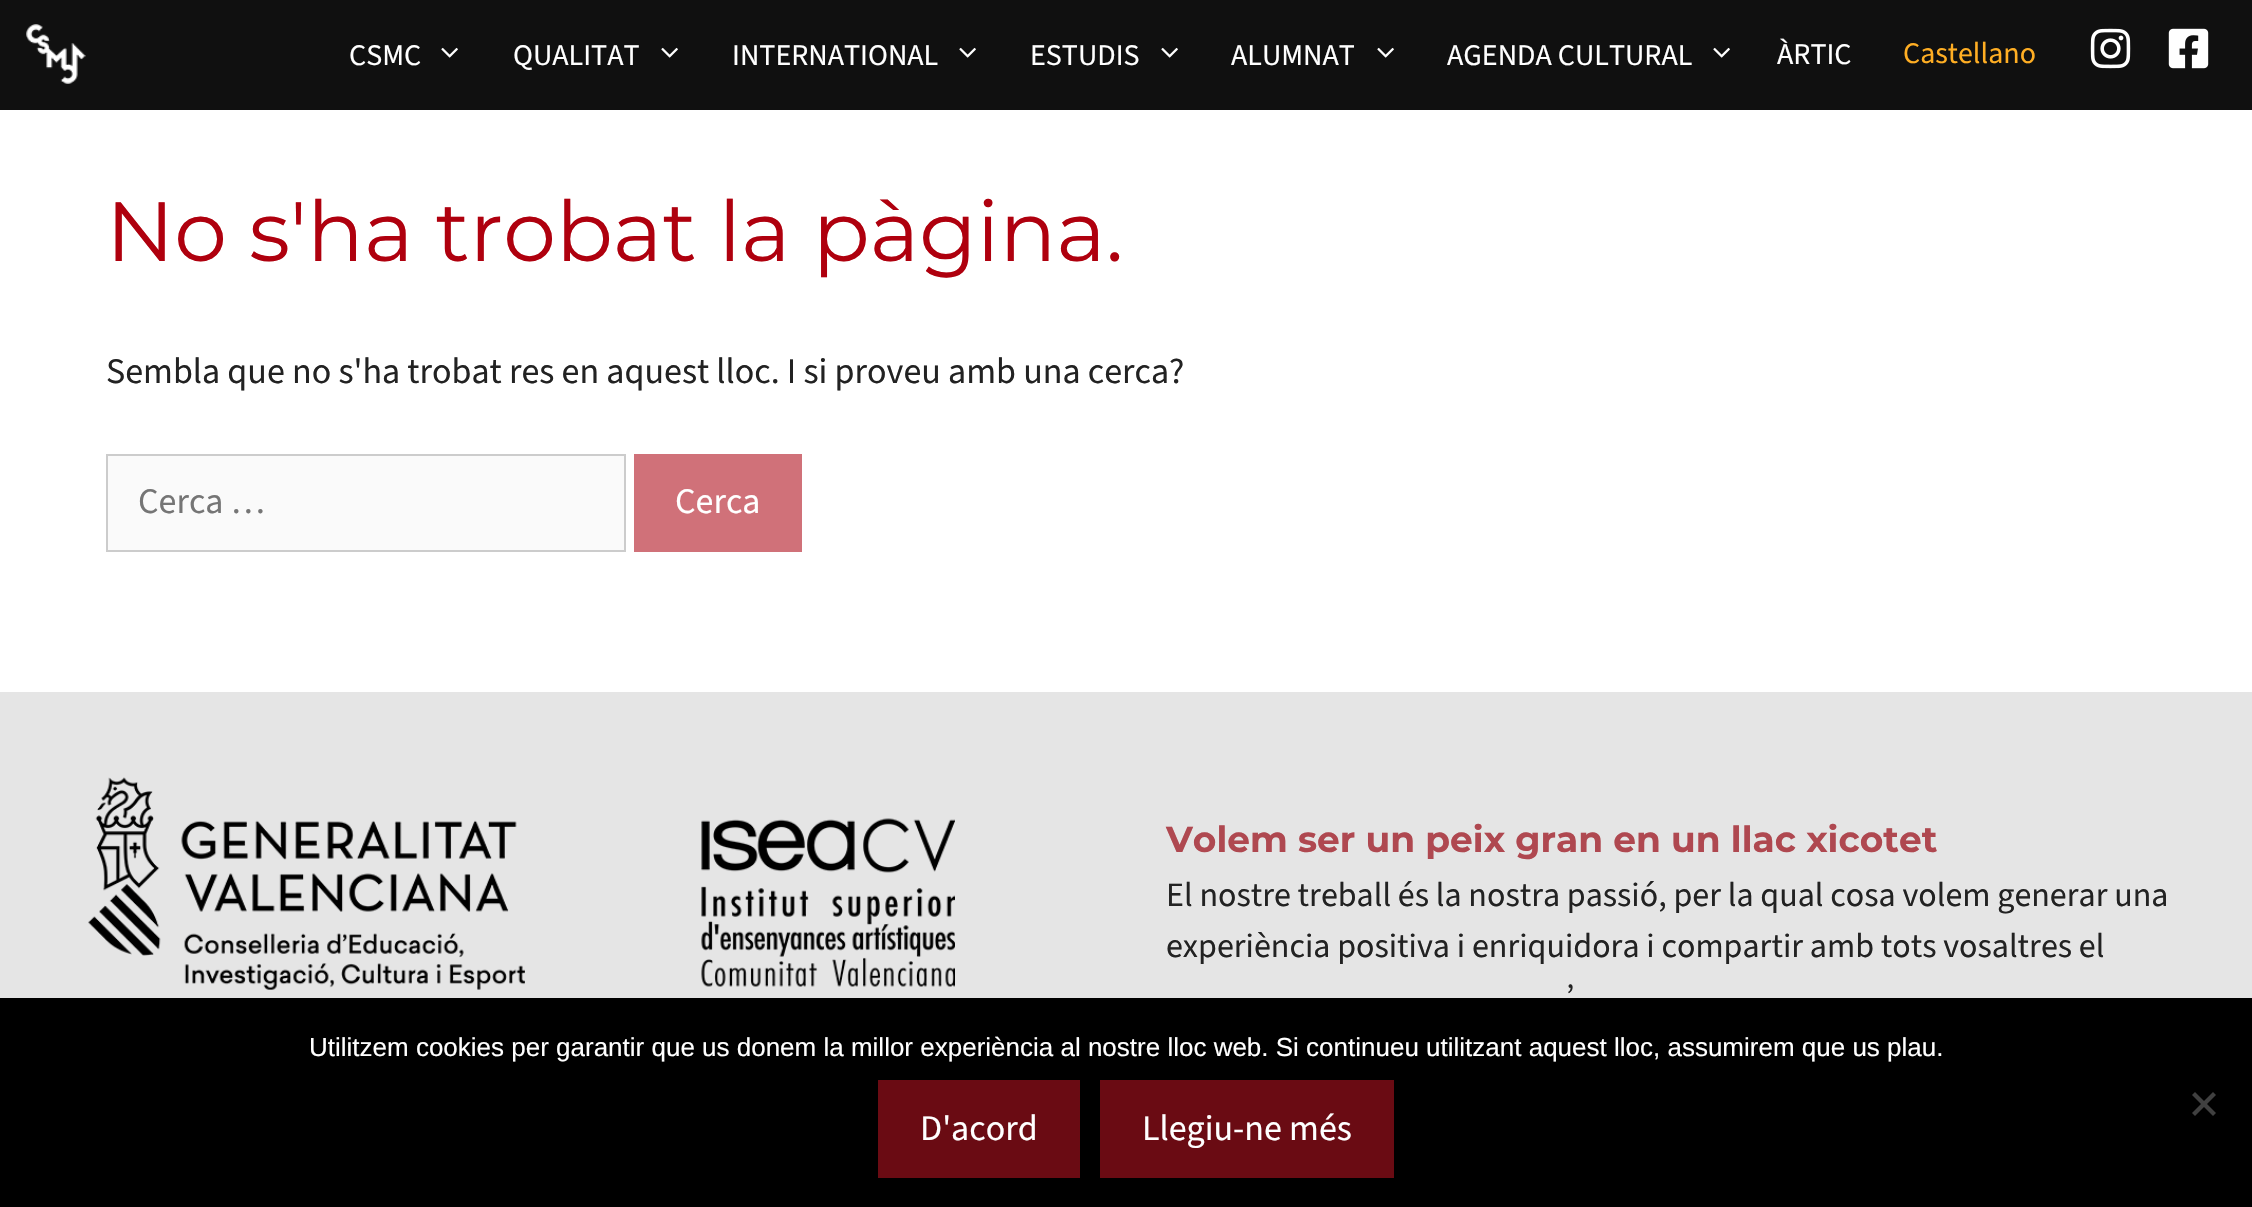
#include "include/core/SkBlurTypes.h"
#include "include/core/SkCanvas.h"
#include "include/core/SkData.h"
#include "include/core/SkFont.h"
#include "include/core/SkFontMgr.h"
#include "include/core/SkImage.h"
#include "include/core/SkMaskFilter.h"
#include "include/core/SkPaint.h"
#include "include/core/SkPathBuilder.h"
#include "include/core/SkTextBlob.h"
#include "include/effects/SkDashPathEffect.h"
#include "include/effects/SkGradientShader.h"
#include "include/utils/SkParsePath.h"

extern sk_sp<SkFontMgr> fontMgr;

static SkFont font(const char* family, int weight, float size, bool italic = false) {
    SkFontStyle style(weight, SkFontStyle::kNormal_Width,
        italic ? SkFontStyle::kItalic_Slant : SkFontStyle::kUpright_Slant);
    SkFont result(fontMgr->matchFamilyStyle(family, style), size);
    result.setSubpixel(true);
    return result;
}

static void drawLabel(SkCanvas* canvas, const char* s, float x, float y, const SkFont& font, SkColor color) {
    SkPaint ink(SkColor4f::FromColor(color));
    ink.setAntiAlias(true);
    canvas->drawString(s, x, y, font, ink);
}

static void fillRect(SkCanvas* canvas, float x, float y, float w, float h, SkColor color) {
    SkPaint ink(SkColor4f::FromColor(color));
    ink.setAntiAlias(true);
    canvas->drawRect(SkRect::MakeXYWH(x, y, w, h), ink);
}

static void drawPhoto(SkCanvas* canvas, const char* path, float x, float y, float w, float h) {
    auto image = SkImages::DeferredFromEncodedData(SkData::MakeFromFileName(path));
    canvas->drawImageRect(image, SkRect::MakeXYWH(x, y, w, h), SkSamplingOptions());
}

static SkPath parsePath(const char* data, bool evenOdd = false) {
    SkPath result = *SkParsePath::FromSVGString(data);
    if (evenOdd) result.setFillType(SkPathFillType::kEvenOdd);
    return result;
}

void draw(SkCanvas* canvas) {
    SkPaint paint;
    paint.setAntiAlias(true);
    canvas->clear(0xFFFFFFFF);
    fillRect(canvas, 0, 0, 2252, 110, 0xFF101010);
    drawPhoto(canvas, "assets/img1.png", 26, 24, 60, 60);
    SkFont font1 = font("Source Sans 3", 400, 30);
    drawLabel(canvas, "CSMC", 349, 65, font1, 0xFFFFFFFF);
    drawPhoto(canvas, "assets/img2.png", 441, 47, 17, 11);
    drawLabel(canvas, "QUALITAT", 513, 65, font1, 0xFFFFFFFF);
    drawPhoto(canvas, "assets/img2.png", 661, 47, 17, 11);
    drawLabel(canvas, "INTERNATIONAL", 732, 65, font1, 0xFFFFFFFF);
    drawPhoto(canvas, "assets/img2.png", 959, 47, 17, 11);
    drawLabel(canvas, "ESTUDIS", 1030, 65, font1, 0xFFFFFFFF);
    drawPhoto(canvas, "assets/img2.png", 1161, 47, 17, 11);
    drawLabel(canvas, "ALUMNAT", 1231, 65, font1, 0xFFFFFFFF);
    drawPhoto(canvas, "assets/img2.png", 1377, 47, 17, 11);
    drawLabel(canvas, "AGENDA CULTURAL", 1447, 65, font1, 0xFFFFFFFF);
    drawPhoto(canvas, "assets/img2.png", 1713, 47, 17, 11);
    drawLabel(canvas, "ÀRTIC", 1777, 64, font1, 0xFFFFFFFF);
    drawLabel(canvas, "Castellano", 1903, 63, font1, 0xFFFFAE23);
    drawPhoto(canvas, "assets/img3.png", 2090, 28, 41, 41);
    drawPhoto(canvas, "assets/img4.png", 2168, 28, 41, 41);
    SkFont font2 = font("Montserrat", 400, 84);
    drawLabel(canvas, "No s'ha trobat la pàgina.", 106, 261, font2, 0xFFAF000E);
    SkFont font3 = font("Source Sans 3", 400, 36);
    drawLabel(canvas, "Sembla que no s'ha trobat res en aquest lloc. I si proveu amb una cerca?", 106, 383, font3, 0xFF222222);
    paint.setColor(0xFFFAFAFA);
    canvas->drawRect(SkRect::MakeXYWH(107, 455, 518, 96), paint);
    paint.setStroke(true);
    paint.setStrokeWidth(2);
    paint.setColor(0xFFCCCCCC);
    canvas->drawRect(SkRect::MakeXYWH(107, 455, 518, 96), paint);
    drawLabel(canvas, "Cerca …", 138, 513, font3, 0xFF757575);
    fillRect(canvas, 634, 454, 168, 98, 0xFFD07179);
    drawLabel(canvas, "Cerca", 675, 513, font3, 0xFFFFFFFF);
    fillRect(canvas, 0, 692, 2252, 306, 0xFFE5E5E5);
    drawPhoto(canvas, "assets/img5.png", 88, 777, 867, 213);
    SkFont font4 = font("Montserrat", 700, 36);
    drawLabel(canvas, "Volem ser un peix gran en un llac xicotet", 1166, 852, font4, 0xFFAF4850);
    SkFont font5 = font("Source Sans 3", 400, 34);
    drawLabel(canvas, "El nostre treball és la nostra passió, per la qual cosa volem generar una", 1166, 906, font5, 0xFF222222);
    drawLabel(canvas, "experiència positiva i enriquidora i compartir amb tots vosaltres el", 1166, 957, font5, 0xFF222222);
    drawLabel(canvas, "’", 1566, 1008, font5, 0xFF222222);
    fillRect(canvas, 0, 998, 2252, 209, 0xFF000000);
    SkFont font6 = font("Liberation Sans", 400, 26);
    drawLabel(canvas, "Utilitzem cookies per garantir que us donem la millor experiència al nostre lloc web. Si continueu utilitzant aquest lloc, assumirem que us plau.", 309, 1056, font6, 0xFFFFFFFF);
    paint.setStroke(false);
    paint.setColor(0xFF404040);
    canvas->drawPath(parsePath("M2213 1092L2216 1095L2195 1116L2192 1113Z"), paint);
    canvas->drawPath(parsePath("M2192 1095L2195 1092L2216 1113L2213 1116Z"), paint);
    fillRect(canvas, 878, 1080, 202, 98, 0xFF6A0B13);
    drawLabel(canvas, "D'acord", 920, 1140, font3, 0xFFFFFFFF);
    fillRect(canvas, 1100, 1080, 294, 98, 0xFF6A0B13);
    drawLabel(canvas, "Llegiu-ne més", 1142, 1140, font3, 0xFFFFFFFF);
}
